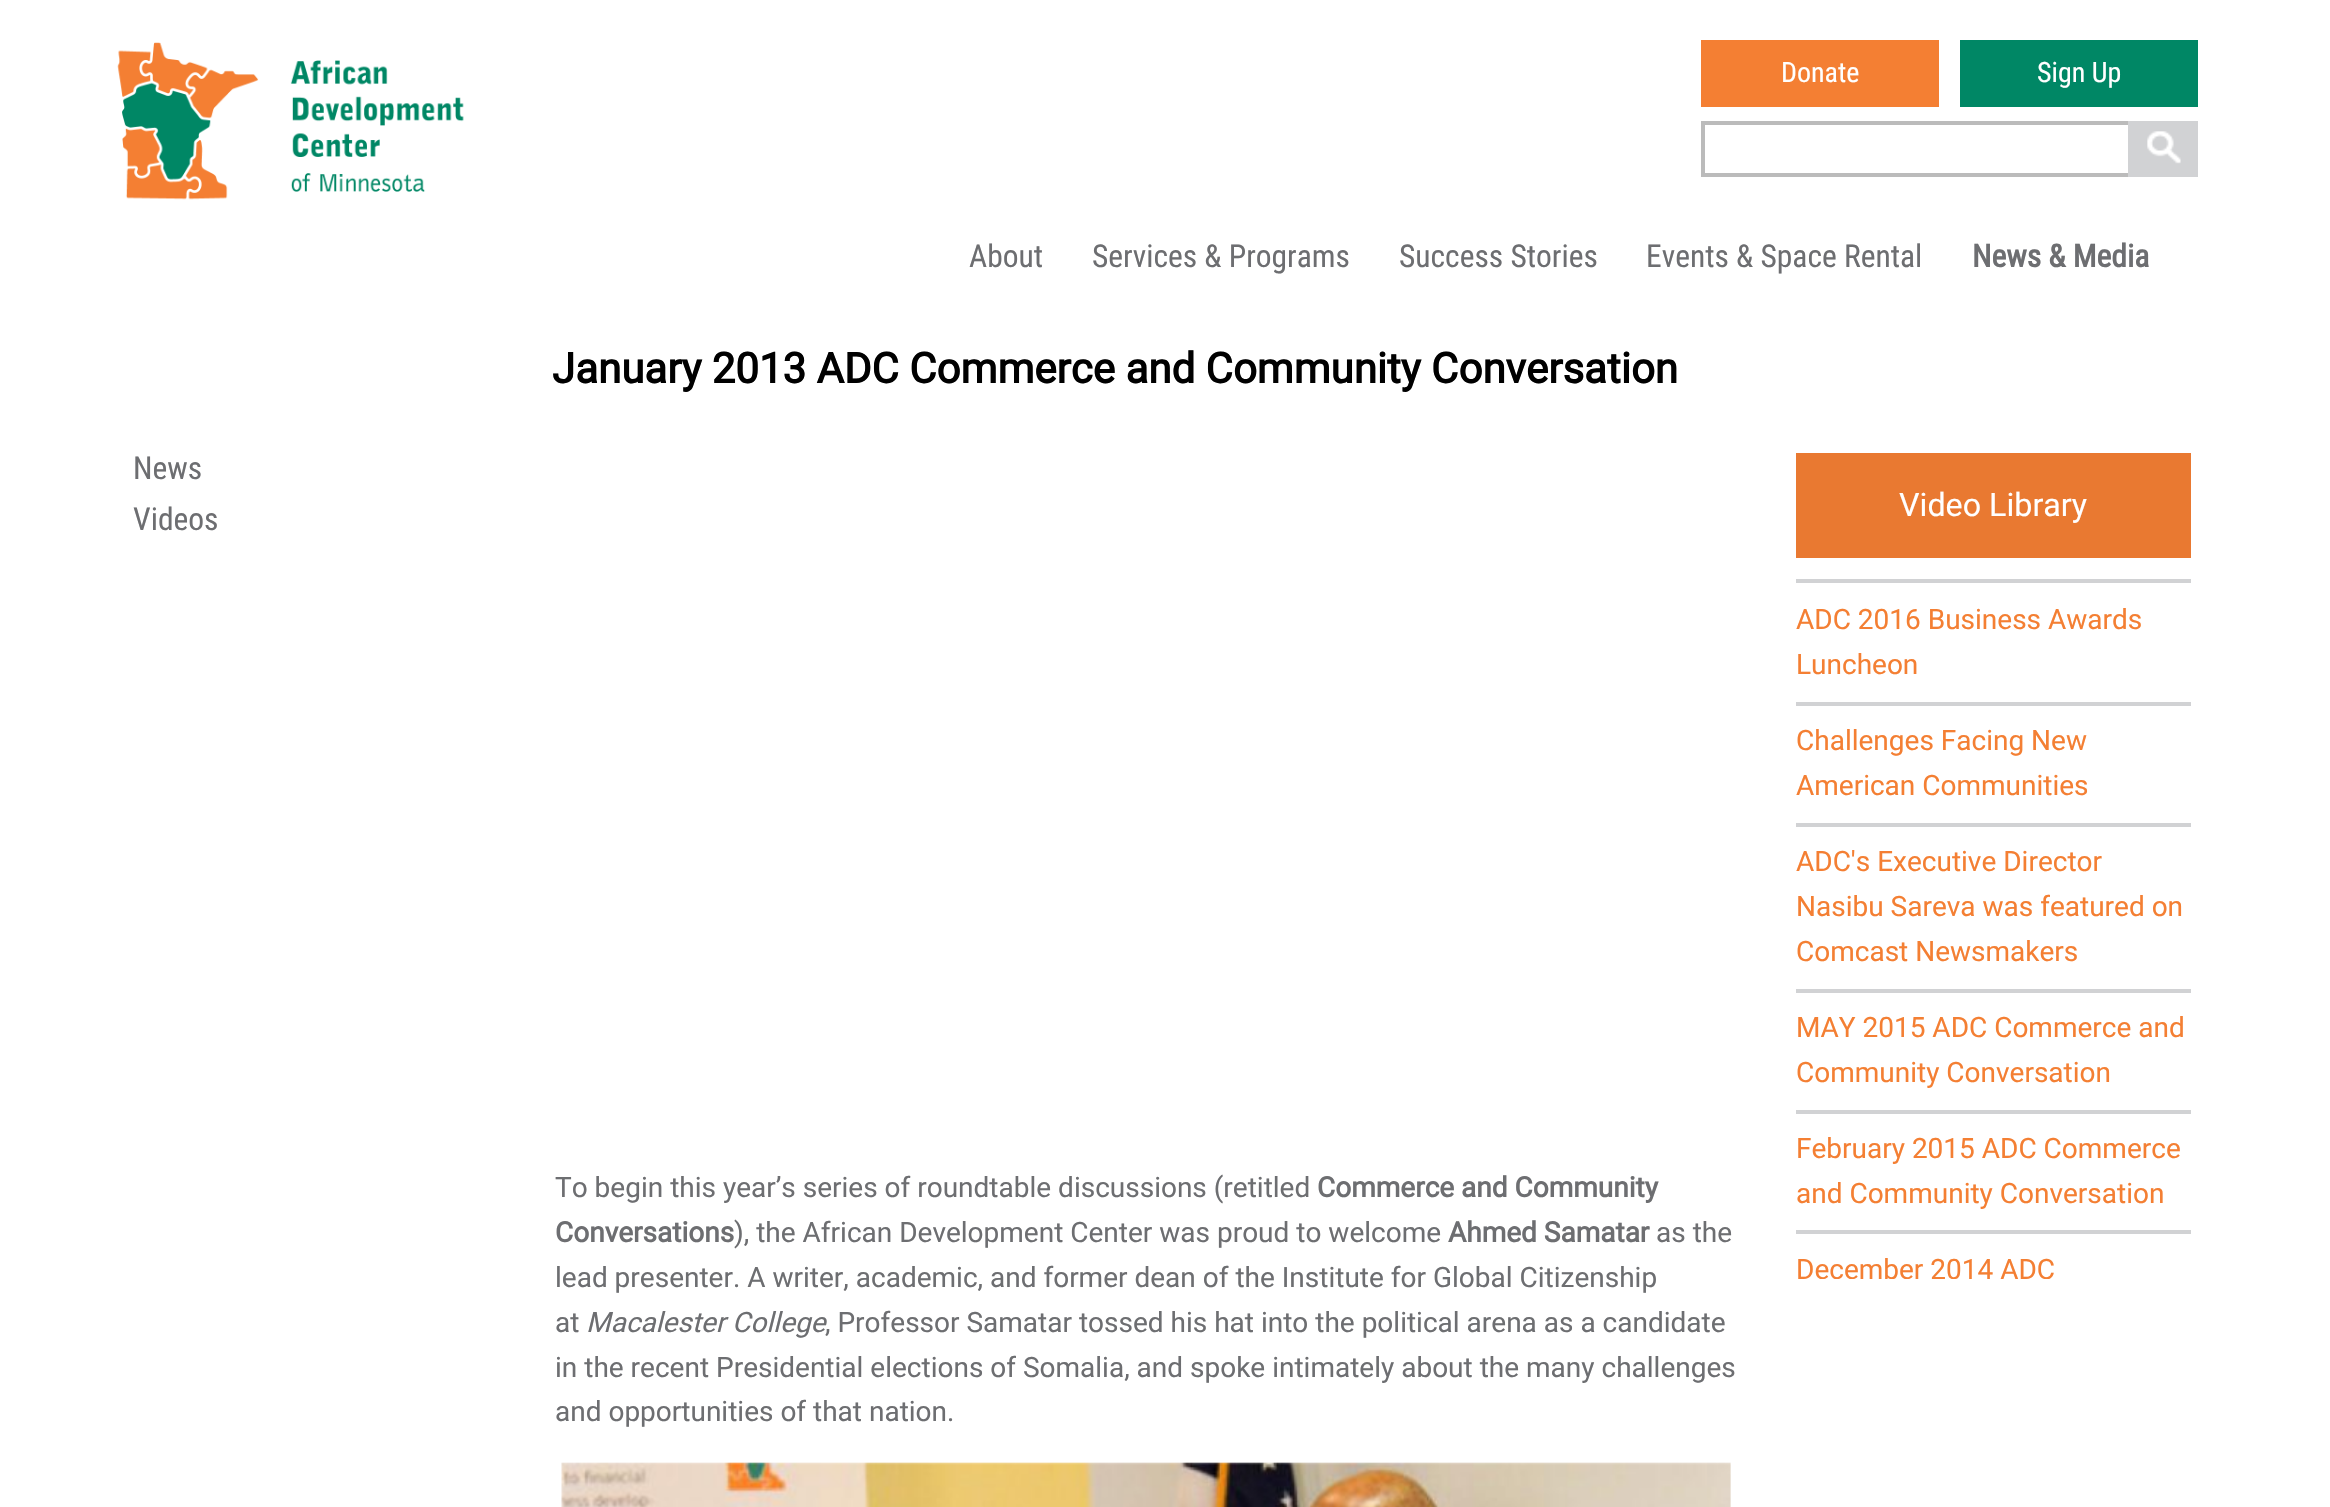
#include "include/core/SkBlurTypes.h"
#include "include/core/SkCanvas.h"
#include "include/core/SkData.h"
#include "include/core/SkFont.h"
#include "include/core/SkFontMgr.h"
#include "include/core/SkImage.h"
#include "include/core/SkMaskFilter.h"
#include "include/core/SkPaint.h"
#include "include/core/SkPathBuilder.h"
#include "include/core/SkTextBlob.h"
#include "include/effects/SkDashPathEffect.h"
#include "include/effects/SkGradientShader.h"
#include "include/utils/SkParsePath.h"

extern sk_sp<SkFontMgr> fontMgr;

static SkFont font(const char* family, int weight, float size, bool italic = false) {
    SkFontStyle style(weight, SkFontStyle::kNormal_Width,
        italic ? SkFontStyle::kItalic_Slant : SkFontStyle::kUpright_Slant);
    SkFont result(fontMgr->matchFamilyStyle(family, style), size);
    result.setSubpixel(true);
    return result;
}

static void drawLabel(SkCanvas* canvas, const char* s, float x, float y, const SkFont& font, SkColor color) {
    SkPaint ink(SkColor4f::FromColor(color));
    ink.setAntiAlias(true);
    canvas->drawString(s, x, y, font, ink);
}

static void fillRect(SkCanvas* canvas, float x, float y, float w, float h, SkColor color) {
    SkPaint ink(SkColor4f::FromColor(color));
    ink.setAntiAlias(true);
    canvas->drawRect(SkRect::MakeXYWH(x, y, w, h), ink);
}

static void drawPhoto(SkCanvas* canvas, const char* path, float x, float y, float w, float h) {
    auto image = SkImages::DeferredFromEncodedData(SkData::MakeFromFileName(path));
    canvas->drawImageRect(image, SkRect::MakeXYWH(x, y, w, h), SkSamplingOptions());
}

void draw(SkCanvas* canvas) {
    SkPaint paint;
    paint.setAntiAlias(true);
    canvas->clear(0xFFFFFFFF);
    drawPhoto(canvas, "assets/img1.png", 117, 42, 347, 158);
    fillRect(canvas, 1701, 40, 238, 67, 0xFFF47F33);
    SkFont font1 = font("Roboto Condensed", 400, 28);
    drawLabel(canvas, "Donate", 1781, 82, font1, 0xFFFFFFFF);
    fillRect(canvas, 1960, 40, 238, 67, 0xFF008765);
    drawLabel(canvas, "Sign Up", 2037, 82, font1, 0xFFFFFFFF);
    paint.setStroke(true);
    paint.setStrokeWidth(4);
    paint.setColor(0xFFBBBBBB);
    canvas->drawRect(SkRect::MakeXYWH(1703, 123, 437, 52), paint);
    fillRect(canvas, 2128, 121, 70, 56, 0xFFD1D2D4);
    drawPhoto(canvas, "assets/img2.png", 2147, 131, 34, 33);
    SkFont font2 = font("Roboto Condensed", 400, 31.5f);
    drawLabel(canvas, "About", 969, 267, font2, 0xFF6D6E71);
    drawLabel(canvas, "Services & Programs", 1092, 267, font2, 0xFF6D6E71);
    drawLabel(canvas, "Success Stories", 1399, 267, font2, 0xFF6D6E71);
    drawLabel(canvas, "Events & Space Rental", 1646, 267, font2, 0xFF6D6E71);
    SkFont font3 = font("Roboto Condensed", 700, 31.5f);
    drawLabel(canvas, "News & Media", 1972, 267, font3, 0xFF6D6E71);
    SkFont font4 = font("Roboto", 700, 42);
    drawLabel(canvas, "January 2013 ADC Commerce and Community Conversation", 552, 383, font4, 0xFF000000);
    drawLabel(canvas, "News", 133, 479, font2, 0xFF6D6E71);
    drawLabel(canvas, "Videos", 133, 530, font2, 0xFF6D6E71);
    SkFont font5 = font("Roboto", 400, 28);
    drawLabel(canvas, "To begin this year’s series of roundtable discussions (retitled", 555, 1197, font5, 0xFF6D6E71);
    SkFont font6 = font("Roboto", 700, 28);
    drawLabel(canvas, "Commerce and Community", 1317, 1197, font6, 0xFF6D6E71);
    drawLabel(canvas, "Conversations", 555, 1242, font6, 0xFF6D6E71);
    drawLabel(canvas, "), the African Development Center was proud to welcome", 734, 1242, font5, 0xFF6D6E71);
    drawLabel(canvas, "Ahmed Samatar", 1448, 1242, font6, 0xFF6D6E71);
    drawLabel(canvas, "as the", 1656, 1242, font5, 0xFF6D6E71);
    drawLabel(canvas, "lead presenter. A writer, academic, and former dean of the Institute for Global Citizenship", 555, 1287, font5, 0xFF6D6E71);
    drawLabel(canvas, "at", 555, 1332, font5, 0xFF6D6E71);
    SkFont font7 = font("Roboto", 400, 28, true);
    drawLabel(canvas, "Macalester College", 586, 1332, font7, 0xFF6D6E71);
    drawLabel(canvas, ", Professor Samatar tossed his hat into the political arena as a candidate", 825, 1332, font5, 0xFF6D6E71);
    drawLabel(canvas, "in the recent Presidential elections of Somalia, and spoke intimately about the many challenges", 555, 1377, font5, 0xFF6D6E71);
    drawLabel(canvas, "and opportunities of that nation.", 555, 1421, font5, 0xFF6D6E71);
    drawPhoto(canvas, "assets/img3.png", 561, 1462, 1170, 45);
    fillRect(canvas, 1796, 453, 395, 105, 0xFFE97931);
    SkFont font8 = font("Roboto", 400, 32.25f);
    drawLabel(canvas, "Video Library", 1899, 516, font8, 0xFFFFFFFF);
    fillRect(canvas, 1796, 579, 395, 4, 0xFFD1D2D4);
    fillRect(canvas, 1796, 702, 395, 4, 0xFFD1D2D4);
    drawLabel(canvas, "ADC 2016 Business Awards", 1796, 629, font5, 0xFFF47F33);
    drawLabel(canvas, "Luncheon", 1796, 674, font5, 0xFFF47F33);
    fillRect(canvas, 1796, 823, 395, 4, 0xFFD1D2D4);
    drawLabel(canvas, "Challenges Facing New", 1796, 750, font5, 0xFFF47F33);
    drawLabel(canvas, "American Communities", 1796, 795, font5, 0xFFF47F33);
    fillRect(canvas, 1796, 989, 395, 4, 0xFFD1D2D4);
    drawLabel(canvas, "ADC's Executive Director", 1796, 871, font5, 0xFFF47F33);
    drawLabel(canvas, "Nasibu Sareva was featured on", 1796, 916, font5, 0xFFF47F33);
    drawLabel(canvas, "Comcast Newsmakers", 1796, 961, font5, 0xFFF47F33);
    fillRect(canvas, 1796, 1110, 395, 4, 0xFFD1D2D4);
    drawLabel(canvas, "MAY 2015 ADC Commerce and", 1796, 1037, font5, 0xFFF47F33);
    drawLabel(canvas, "Community Conversation", 1796, 1082, font5, 0xFFF47F33);
    fillRect(canvas, 1796, 1230, 395, 4, 0xFFD1D2D4);
    drawLabel(canvas, "February 2015 ADC Commerce", 1796, 1158, font5, 0xFFF47F33);
    drawLabel(canvas, "and Community Conversation", 1796, 1203, font5, 0xFFF47F33);
    canvas->save();
    canvas->clipRect(SkRect::MakeXYWH(1796, 579, 395, 700));
    drawLabel(canvas, "December 2014 ADC", 1796, 1279, font5, 0xFFF47F33);
    canvas->restore();
}
